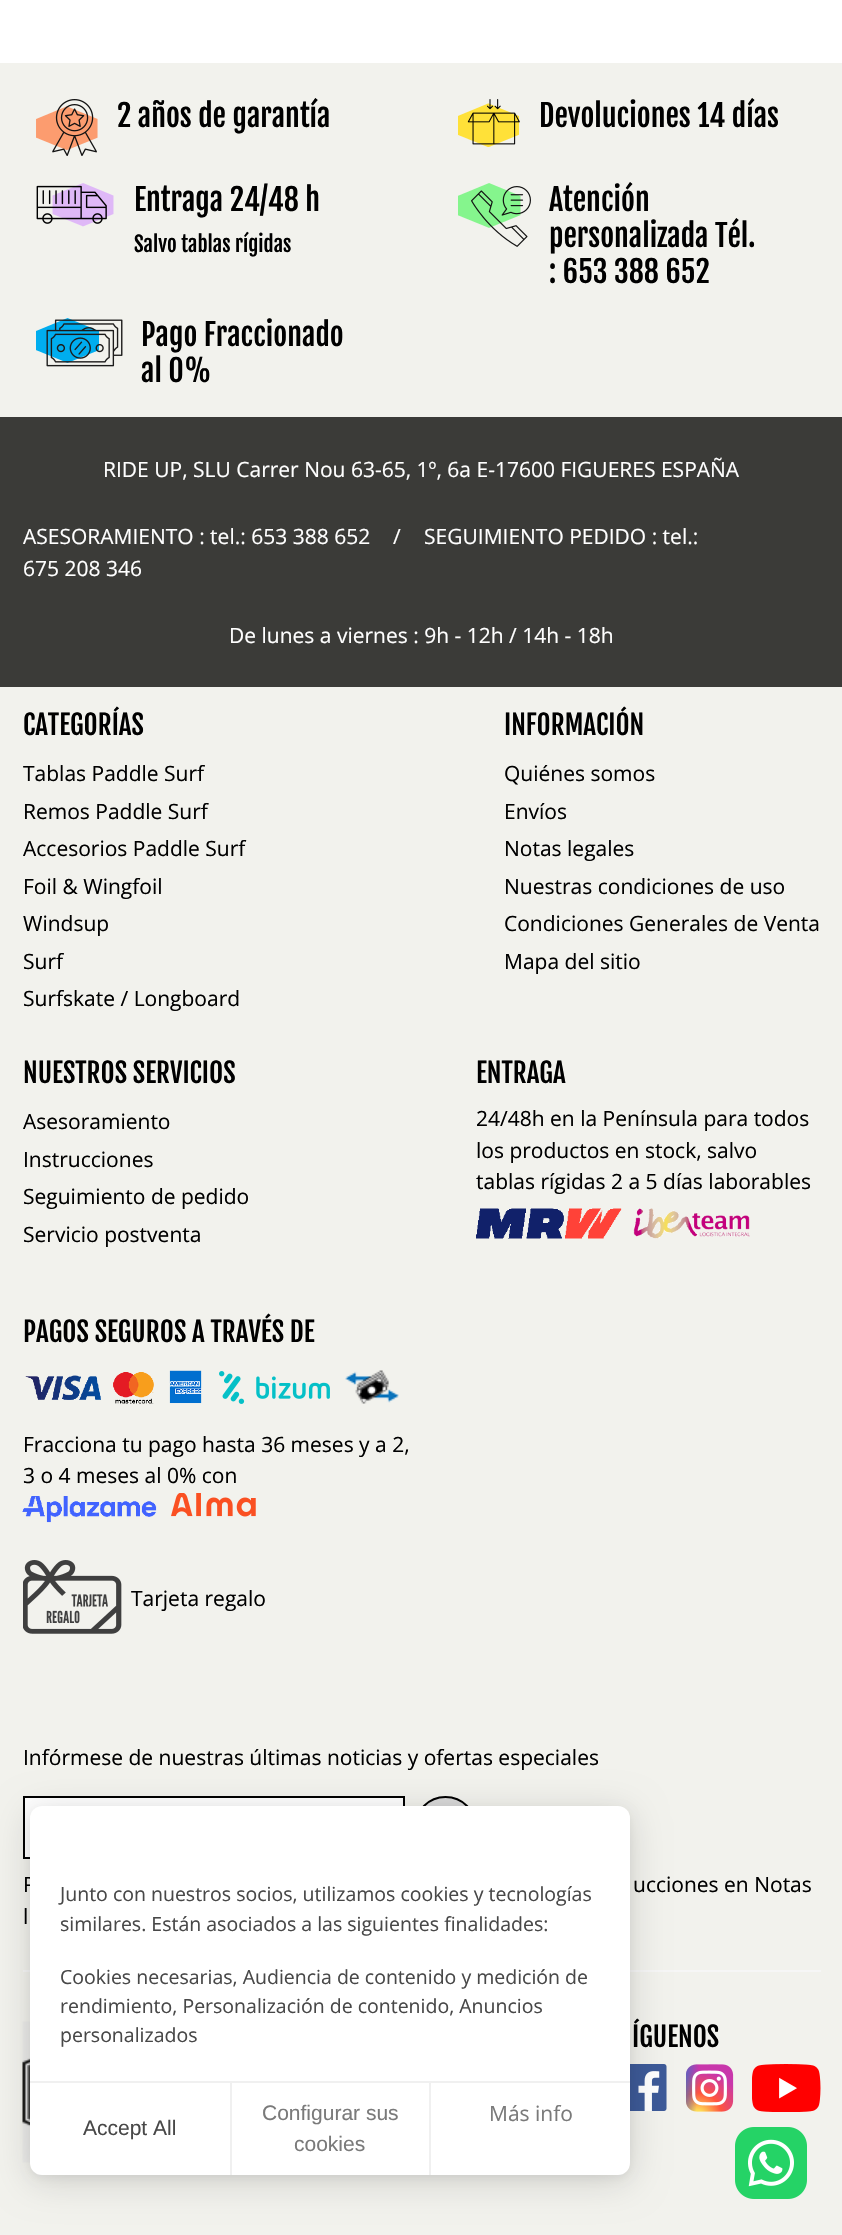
#include "include/core/SkBlurTypes.h"
#include "include/core/SkCanvas.h"
#include "include/core/SkData.h"
#include "include/core/SkFont.h"
#include "include/core/SkFontMgr.h"
#include "include/core/SkImage.h"
#include "include/core/SkMaskFilter.h"
#include "include/core/SkPaint.h"
#include "include/core/SkPathBuilder.h"
#include "include/core/SkTextBlob.h"
#include "include/effects/SkDashPathEffect.h"
#include "include/effects/SkGradientShader.h"
#include "include/utils/SkParsePath.h"

extern sk_sp<SkFontMgr> fontMgr;

static SkFont font(const char* family, int weight, float size, bool italic = false) {
    SkFontStyle style(weight, SkFontStyle::kNormal_Width,
        italic ? SkFontStyle::kItalic_Slant : SkFontStyle::kUpright_Slant);
    SkFont result(fontMgr->matchFamilyStyle(family, style), size);
    result.setSubpixel(true);
    return result;
}

static void drawLabel(SkCanvas* canvas, const char* s, float x, float y, const SkFont& font, SkColor color) {
    SkPaint ink(SkColor4f::FromColor(color));
    ink.setAntiAlias(true);
    canvas->drawString(s, x, y, font, ink);
}

static void fillRect(SkCanvas* canvas, float x, float y, float w, float h, SkColor color) {
    SkPaint ink(SkColor4f::FromColor(color));
    ink.setAntiAlias(true);
    canvas->drawRect(SkRect::MakeXYWH(x, y, w, h), ink);
}

static void fillRRect(SkCanvas* canvas, float x, float y, float w, float h, float radius, SkColor color) {
    SkPaint ink(SkColor4f::FromColor(color));
    ink.setAntiAlias(true);
    canvas->drawRoundRect(SkRect::MakeXYWH(x, y, w, h), radius, radius, ink);
}

static void drawPhoto(SkCanvas* canvas, const char* path, float x, float y, float w, float h) {
    auto image = SkImages::DeferredFromEncodedData(SkData::MakeFromFileName(path));
    canvas->drawImageRect(image, SkRect::MakeXYWH(x, y, w, h), SkSamplingOptions());
}

void draw(SkCanvas* canvas) {
    SkPaint paint;
    paint.setAntiAlias(true);
    canvas->clear(0xFFFFFFFF);
    fillRect(canvas, 0, 63, 842, 354, 0xFFF2F2ED);
    drawPhoto(canvas, "assets/img1.png", 36, 99, 62, 57);
    SkFont font1 = font("Fjalla One", 400, 30);
    drawLabel(canvas, "2 años de garantía", 117, 127, font1, 0xFF000000);
    drawPhoto(canvas, "assets/img2.png", 458, 99, 62, 48);
    drawLabel(canvas, "Devoluciones 14 días", 539, 127, font1, 0xFF000000);
    drawPhoto(canvas, "assets/img3.png", 36, 183, 78, 44);
    drawLabel(canvas, "Entraga 24/48 h", 134, 211, font1, 0xFF000000);
    SkFont font2 = font("Fjalla One", 400, 21);
    drawLabel(canvas, "Salvo tablas rígidas", 134, 252, font2, 0xFF000000);
    drawPhoto(canvas, "assets/img4.png", 458, 183, 73, 64);
    drawLabel(canvas, "Atención", 549, 211, font1, 0xFF000000);
    drawLabel(canvas, "personalizada Tél.", 549, 247, font1, 0xFF000000);
    drawLabel(canvas, ": 653 388 652", 549, 283, font1, 0xFF000000);
    drawPhoto(canvas, "assets/img5.png", 36, 318, 87, 49);
    drawLabel(canvas, "Pago Fraccionado", 141, 346, font1, 0xFF000000);
    drawLabel(canvas, "al 0%", 141, 382, font1, 0xFF000000);
    fillRect(canvas, 0, 417, 842, 270, 0xFF3B3B38);
    SkFont font3 = font("Open Sans", 400, 21);
    drawLabel(canvas, "RIDE UP, SLU Carrer Nou 63-65, 1º, 6a E-17600 FIGUERES ESPAÑA", 103, 477, font3, 0xFFFFFFFF);
    drawLabel(canvas, "ASESORAMIENTO : tel.: 653 388 652", 23, 544, font3, 0xFFFFFFFF);
    drawLabel(canvas, "/", 393, 544, font3, 0xFFFFFFFF);
    drawLabel(canvas, "SEGUIMIENTO PEDIDO : tel.:", 424, 544, font3, 0xFFFFFFFF);
    drawLabel(canvas, "675 208 346", 23, 576, font3, 0xFFFFFFFF);
    drawLabel(canvas, "De lunes a viernes : 9h - 12h / 14h - 18h", 229, 643, font3, 0xFFFFFFFF);
    fillRect(canvas, 0, 687, 842, 1548, 0xFFF2F2ED);
    SkFont font4 = font("Fjalla One", 400, 27);
    drawLabel(canvas, "CATEGORÍAS", 23, 735, font4, 0xFF000000);
    drawLabel(canvas, "Tablas Paddle Surf", 23, 781, font3, 0xFF000000);
    drawLabel(canvas, "Remos Paddle Surf", 23, 819, font3, 0xFF000000);
    drawLabel(canvas, "Accesorios Paddle Surf", 23, 856, font3, 0xFF000000);
    drawLabel(canvas, "Foil & Wingfoil", 23, 894, font3, 0xFF000000);
    drawLabel(canvas, "Windsup", 23, 931, font3, 0xFF000000);
    drawLabel(canvas, "Surf", 23, 969, font3, 0xFF000000);
    drawLabel(canvas, "Surfskate / Longboard", 23, 1006, font3, 0xFF000000);
    drawLabel(canvas, "INFORMACIÓN", 504, 735, font4, 0xFF000000);
    drawLabel(canvas, "Quiénes somos", 504, 781, font3, 0xFF000000);
    drawLabel(canvas, "Envíos", 504, 819, font3, 0xFF000000);
    drawLabel(canvas, "Notas legales", 504, 856, font3, 0xFF000000);
    drawLabel(canvas, "Nuestras condiciones de uso", 504, 894, font3, 0xFF000000);
    drawLabel(canvas, "Condiciones Generales de Venta", 504, 931, font3, 0xFF000000);
    drawLabel(canvas, "Mapa del sitio", 504, 969, font3, 0xFF000000);
    drawLabel(canvas, "NUESTROS SERVICIOS", 23, 1083, font4, 0xFF000000);
    drawLabel(canvas, "Asesoramiento", 23, 1129, font3, 0xFF000000);
    drawLabel(canvas, "Instrucciones", 23, 1167, font3, 0xFF000000);
    drawLabel(canvas, "Seguimiento de pedido", 23, 1204, font3, 0xFF000000);
    drawLabel(canvas, "Servicio postventa", 23, 1242, font3, 0xFF000000);
    drawLabel(canvas, "ENTRAGA", 476, 1083, font4, 0xFF000000);
    drawLabel(canvas, "24/48h en la Península para todos", 476, 1126, font3, 0xFF000000);
    drawLabel(canvas, "los productos en stock, salvo", 476, 1158, font3, 0xFF000000);
    drawLabel(canvas, "tablas rígidas 2 a 5 días laborables", 476, 1189, font3, 0xFF000000);
    drawPhoto(canvas, "assets/img6.png", 476, 1208, 274, 31);
    drawLabel(canvas, "PAGOS SEGUROS A TRAVÉS DE", 23, 1342, font4, 0xFF000000);
    drawPhoto(canvas, "assets/img7.png", 25, 1370, 177, 34);
    drawPhoto(canvas, "assets/img8.png", 219, 1371, 111, 33);
    drawPhoto(canvas, "assets/img9.png", 345, 1370, 54, 34);
    drawLabel(canvas, "Fracciona tu pago hasta 36 meses y a 2,", 23, 1452, font3, 0xFF000000);
    drawLabel(canvas, "3 o 4 meses al 0% con", 23, 1483, font3, 0xFF000000);
    drawPhoto(canvas, "assets/img10.png", 22, 1496, 135, 27);
    drawPhoto(canvas, "assets/img11.png", 171, 1493, 85, 24);
    drawPhoto(canvas, "assets/img12.png", 23, 1560, 99, 74);
    drawLabel(canvas, "Tarjeta regalo", 131, 1606, font3, 0xFF000000);
    fillRect(canvas, 23, 1970, 798, 2, 0xFFF6F6F6);
    drawLabel(canvas, "Infórmese de nuestras últimas noticias y ofertas especiales", 23, 1765, font3, 0xFF000000);
    paint.setColor(0xFFFFFFFF);
    canvas->drawRect(SkRect::MakeXYWH(24, 1797, 380, 61), paint);
    paint.setStroke(true);
    paint.setStrokeWidth(2);
    paint.setColor(0xFF000000);
    canvas->drawRect(SkRect::MakeXYWH(24, 1797, 380, 61), paint);
    paint.setStroke(false);
    paint.setColor(0xFFD9D9D9);
    canvas->drawCircle(445.5f, 1827.5f, 30.5f, paint);
    paint.setStroke(true);
    paint.setColor(0xFF000000);
    canvas->drawCircle(445.5f, 1827.5f, 30.5f, paint);
    drawLabel(canvas, "P", 23, 1892, font3, 0xFF000000);
    drawLabel(canvas, "ucciones en Notas", 633, 1892, font3, 0xFF000000);
    drawLabel(canvas, "l", 23, 1924, font3, 0xFF000000);
    drawPhoto(canvas, "assets/img13.png", 22, 2021, 8, 142);
    drawLabel(canvas, "ÍGUENOS", 632, 2047, font4, 0xFF000000);
    drawPhoto(canvas, "assets/img14.png", 630, 2064, 37, 47);
    drawPhoto(canvas, "assets/img15.png", 686, 2064, 48, 48);
    drawPhoto(canvas, "assets/img16.png", 752, 2064, 69, 48);
    paint.setStroke(false);
    paint.setColor(0x0D000000);
    paint.setMaskFilter(SkMaskFilter::MakeBlur(kNormal_SkBlurStyle, 4.5f));
    canvas->drawRoundRect(SkRect::MakeXYWH(30, 1809, 600, 369), 12, 12, paint);
    paint.setMaskFilter(nullptr);
    paint.setColor(0x26000000);
    paint.setMaskFilter(SkMaskFilter::MakeBlur(kNormal_SkBlurStyle, 18));
    canvas->drawRoundRect(SkRect::MakeXYWH(30, 1812, 600, 369), 12, 12, paint);
    paint.setMaskFilter(nullptr);
    fillRRect(canvas, 30, 1806, 600, 369, 12, 0xFFFFFFFF);
    SkFont font5 = font("Open Sans", 400, 19.5f);
    drawLabel(canvas, "Junto con nuestros socios, utilizamos cookies y tecnologías", 60, 1901, font5, 0xFF484848);
    drawLabel(canvas, "similares. Están asociados a las siguientes finalidades:", 60, 1931, font5, 0xFF484848);
    drawLabel(canvas, "Cookies necesarias, Audiencia de contenido y medición de", 60, 1984, font5, 0xFF484848);
    drawLabel(canvas, "rendimiento, Personalización de contenido, Anuncios", 60, 2013, font5, 0xFF484848);
    drawLabel(canvas, "personalizados", 60, 2042, font5, 0xFF484848);
    fillRect(canvas, 30, 2081, 600, 2, 0xFFF0F0F0);
    fillRect(canvas, 429, 2082, 2, 93, 0xFFF0F0F0);
    SkFont font6 = font("Liberation Sans", 400, 21);
    drawLabel(canvas, "Configurar sus", 262, 2120, font6, 0xFF7A7A7A);
    drawLabel(canvas, "cookies", 294, 2151, font6, 0xFF7A7A7A);
    drawLabel(canvas, "Más info", 489, 2121, font3, 0xFF7A7A7A);
    fillRect(canvas, 230, 2082, 2, 93, 0xFFF0F0F0);
    drawLabel(canvas, "Accept All", 83, 2135, font6, 0xFF484848);
    drawPhoto(canvas, "assets/img17.png", 735, 2127, 72, 72);
}
